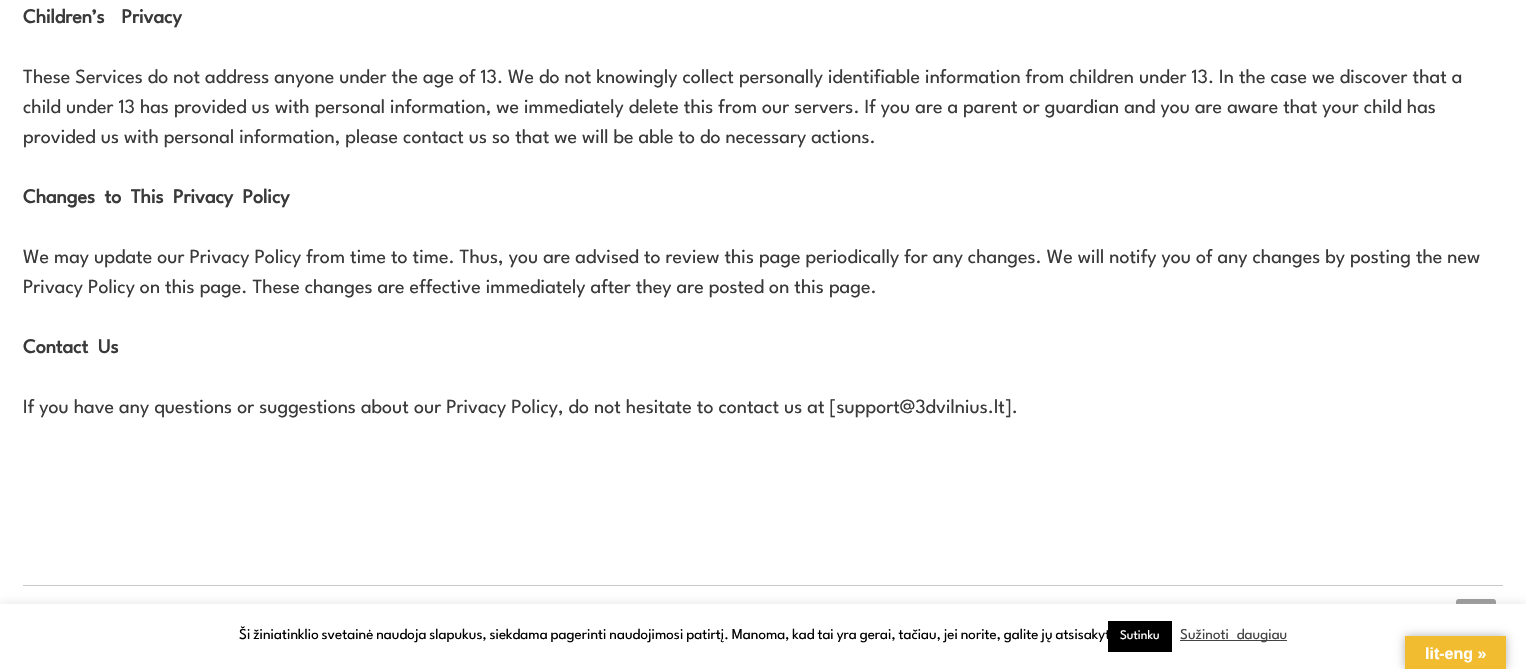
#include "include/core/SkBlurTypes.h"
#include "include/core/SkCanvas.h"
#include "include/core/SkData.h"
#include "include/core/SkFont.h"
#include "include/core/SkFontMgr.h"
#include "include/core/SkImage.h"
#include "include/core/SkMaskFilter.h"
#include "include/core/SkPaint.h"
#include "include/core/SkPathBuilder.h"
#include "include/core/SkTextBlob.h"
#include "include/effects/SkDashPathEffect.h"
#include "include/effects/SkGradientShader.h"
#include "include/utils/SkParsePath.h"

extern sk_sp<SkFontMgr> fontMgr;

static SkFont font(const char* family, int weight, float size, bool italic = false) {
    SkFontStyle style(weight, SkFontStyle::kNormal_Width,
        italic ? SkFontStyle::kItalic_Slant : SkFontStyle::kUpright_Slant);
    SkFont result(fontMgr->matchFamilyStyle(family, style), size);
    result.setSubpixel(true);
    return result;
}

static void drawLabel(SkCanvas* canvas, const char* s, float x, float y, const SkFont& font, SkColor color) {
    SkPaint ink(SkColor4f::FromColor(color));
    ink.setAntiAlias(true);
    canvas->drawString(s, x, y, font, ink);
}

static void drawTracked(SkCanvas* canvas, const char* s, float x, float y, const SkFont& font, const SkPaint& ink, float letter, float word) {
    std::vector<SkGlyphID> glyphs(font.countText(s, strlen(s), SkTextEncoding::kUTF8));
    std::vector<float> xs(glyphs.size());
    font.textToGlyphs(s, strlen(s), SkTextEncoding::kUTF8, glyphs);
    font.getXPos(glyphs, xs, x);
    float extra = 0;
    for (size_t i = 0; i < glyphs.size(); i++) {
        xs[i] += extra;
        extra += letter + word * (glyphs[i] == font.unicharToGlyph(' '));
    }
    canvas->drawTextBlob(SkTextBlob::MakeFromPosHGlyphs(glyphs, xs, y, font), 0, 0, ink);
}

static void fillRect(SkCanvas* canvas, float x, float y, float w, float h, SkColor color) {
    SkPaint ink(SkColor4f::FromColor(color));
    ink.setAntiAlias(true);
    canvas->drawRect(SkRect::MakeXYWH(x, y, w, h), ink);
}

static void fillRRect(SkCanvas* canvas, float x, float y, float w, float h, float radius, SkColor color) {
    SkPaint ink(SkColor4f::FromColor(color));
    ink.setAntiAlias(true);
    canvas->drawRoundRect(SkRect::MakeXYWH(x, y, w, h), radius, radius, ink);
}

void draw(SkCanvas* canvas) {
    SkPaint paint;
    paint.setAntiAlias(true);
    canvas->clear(0xFFFFFFFF);
    SkFont font1 = font("League Spartan", 700, 20);
    paint.setColor(0xFF3A3A3A);
    drawTracked(canvas, "Children’s Privacy", 23, 23, font1, paint, 0, 12);
    SkFont font2 = font("League Spartan", 400, 20);
    drawLabel(canvas, "These Services do not address anyone under the age of 13. We do not knowingly collect personally identifiable information from children under 13. In the case we discover that a", 23, 83, font2, 0xFF3A3A3A);
    drawLabel(canvas, "child under 13 has provided us with personal information, we immediately delete this from our servers. If you are a parent or guardian and you are aware that your child has", 23, 113, font2, 0xFF3A3A3A);
    drawLabel(canvas, "provided us with personal information, please contact us so that we will be able to do necessary actions.", 23, 143, font2, 0xFF3A3A3A);
    drawTracked(canvas, "Changes to This Privacy Policy", 23, 203, font1, paint, 0, 4.5f);
    drawLabel(canvas, "We may update our Privacy Policy from time to time. Thus, you are advised to review this page periodically for any changes. We will notify you of any changes by posting the new", 23, 263, font2, 0xFF3A3A3A);
    drawLabel(canvas, "Privacy Policy on this page. These changes are effective immediately after they are posted on this page.", 23, 293, font2, 0xFF3A3A3A);
    drawTracked(canvas, "Contact Us", 23, 353, font1, paint, 0, 5);
    drawLabel(canvas, "If you have any questions or suggestions about our Privacy Policy, do not hesitate to contact us at [support@3dvilnius.lt].", 23, 413, font2, 0xFF3A3A3A);
    fillRect(canvas, 23, 585, 1480, 1, 0xFFC9C9C9);
    fillRRect(canvas, 1456, 599, 40, 40, 3, 0xFF999999);
    paint.setColor(0x4DACABAB);
    paint.setMaskFilter(SkMaskFilter::MakeBlur(kNormal_SkBlurStyle, 5));
    canvas->drawRect(SkRect::MakeXYWH(0, 603, 1526, 65), paint);
    paint.setMaskFilter(nullptr);
    fillRect(canvas, 0, 604, 1526, 65, 0xFFFFFFFF);
    SkFont font3 = font("League Spartan", 400, 15);
    paint.setColor(0xFF000000);
    drawTracked(canvas, "Ši žiniatinklio svetainė naudoja slapukus, siekdama pagerinti naudojimosi patirtį. Manoma, kad tai yra gerai, tačiau, jei norite, galite jų atsisakyt", 239, 639, font3, paint, 0, -0.9f);
    fillRect(canvas, 1108, 621, 64, 31, 0xFF000000);
    SkFont font4 = font("League Spartan", 400, 13);
    drawLabel(canvas, "Sutinku", 1120, 639, font4, 0xFFFFFFFF);
    fillRect(canvas, 1180, 640, 107, 1, 0xFF444444);
    paint.setColor(0xFF444444);
    drawTracked(canvas, "Sužinoti daugiau", 1180, 639, font3, paint, 0, 4);
    paint.setColor(0x4D000000);
    paint.setMaskFilter(SkMaskFilter::MakeBlur(kNormal_SkBlurStyle, 4.5f));
    canvas->drawRect(SkRect::MakeXYWH(1405, 636, 101, 33), paint);
    paint.setMaskFilter(nullptr);
    fillRect(canvas, 1405, 636, 101, 33, 0xFFF1BC2F);
    SkFont font5 = font("Liberation Sans", 700, 16);
    drawLabel(canvas, "lit-eng »", 1425, 659, font5, 0xFFFFFFFF);
}
